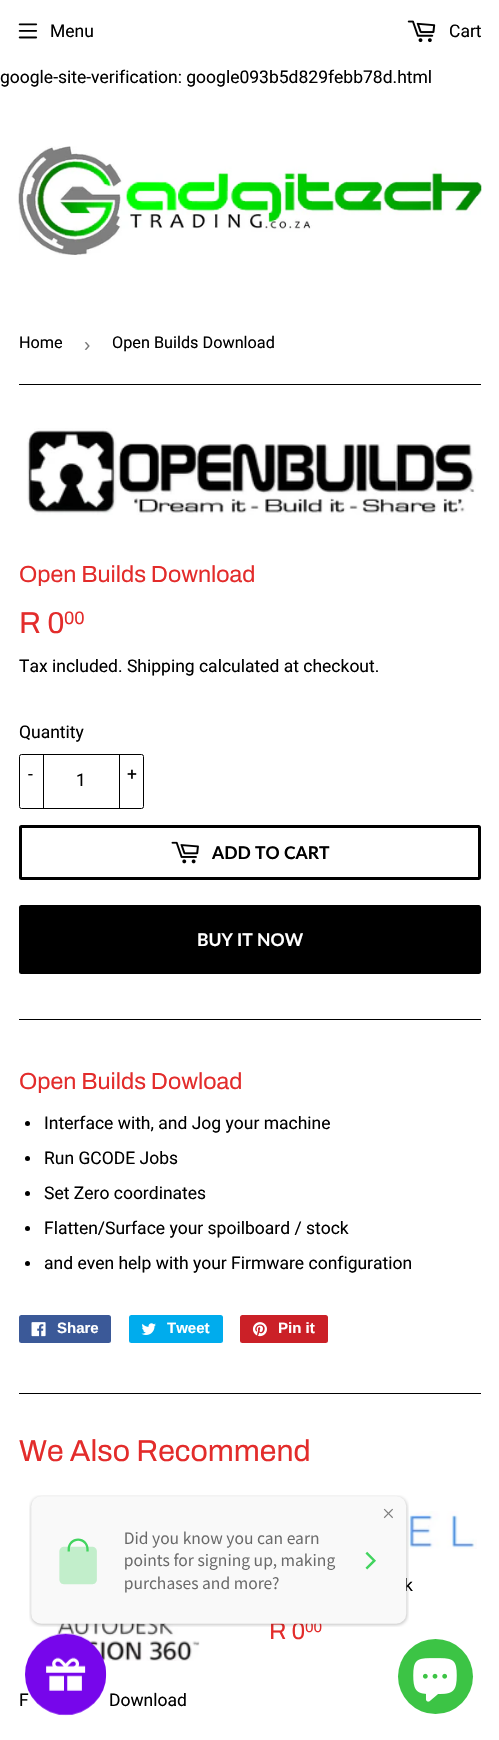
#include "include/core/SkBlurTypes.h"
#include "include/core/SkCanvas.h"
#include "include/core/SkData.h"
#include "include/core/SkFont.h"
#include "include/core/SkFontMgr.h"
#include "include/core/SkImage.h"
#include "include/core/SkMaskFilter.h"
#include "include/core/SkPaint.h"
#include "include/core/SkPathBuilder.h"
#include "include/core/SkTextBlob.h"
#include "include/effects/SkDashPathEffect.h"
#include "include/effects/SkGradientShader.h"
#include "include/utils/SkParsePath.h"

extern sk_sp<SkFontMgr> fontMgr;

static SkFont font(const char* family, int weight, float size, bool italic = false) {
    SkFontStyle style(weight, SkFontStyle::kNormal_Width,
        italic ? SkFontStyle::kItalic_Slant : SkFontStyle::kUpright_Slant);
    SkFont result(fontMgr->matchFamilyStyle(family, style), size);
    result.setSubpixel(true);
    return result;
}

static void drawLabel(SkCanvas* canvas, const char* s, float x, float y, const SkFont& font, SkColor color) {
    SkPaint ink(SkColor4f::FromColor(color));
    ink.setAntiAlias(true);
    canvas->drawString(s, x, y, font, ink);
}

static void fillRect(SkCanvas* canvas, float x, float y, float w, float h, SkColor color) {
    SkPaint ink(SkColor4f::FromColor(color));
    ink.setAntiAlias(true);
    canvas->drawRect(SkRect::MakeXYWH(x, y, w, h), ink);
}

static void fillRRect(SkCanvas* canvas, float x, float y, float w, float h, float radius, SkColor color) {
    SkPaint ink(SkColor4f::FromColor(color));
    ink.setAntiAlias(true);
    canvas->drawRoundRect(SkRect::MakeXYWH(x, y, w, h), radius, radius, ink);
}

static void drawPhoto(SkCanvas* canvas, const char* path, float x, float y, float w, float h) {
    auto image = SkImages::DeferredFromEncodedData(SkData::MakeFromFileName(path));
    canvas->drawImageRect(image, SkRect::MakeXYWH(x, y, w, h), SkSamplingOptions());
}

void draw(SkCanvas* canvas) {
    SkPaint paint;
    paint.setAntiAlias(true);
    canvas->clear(0xFFFFFFFF);
    drawPhoto(canvas, "assets/img1.png", 18, 23, 20, 16);
    SkFont font1 = font("Roboto", 400, 17.5f);
    drawLabel(canvas, "Menu", 50, 37, font1, 0xFF000000);
    drawPhoto(canvas, "assets/img2.png", 407, 20, 29, 23);
    drawLabel(canvas, "Cart", 449, 37, font1, 0xFF000000);
    drawPhoto(canvas, "assets/img3.png", 18, 146, 464, 109);
    drawLabel(canvas, "google-site-verification: google093b5d829febb78d.html", 0, 83, font1, 0xFF000000);
    fillRect(canvas, 19, 384, 462, 1, 0xFF000000);
    SkFont font2 = font("Roboto", 400, 16.25f);
    drawLabel(canvas, "Home", 19, 348, font2, 0xFF000000);
    SkFont font3 = font("Liberation Sans", 400, 19);
    drawLabel(canvas, "›", 84, 351, font3, 0xFF767676);
    drawLabel(canvas, "Open Builds Download", 112, 348, font2, 0xFF000000);
    drawPhoto(canvas, "assets/img4.png", 27, 428, 449, 87);
    SkFont font4 = font("Archivo", 400, 23.25f);
    drawLabel(canvas, "Open Builds Download", 19, 582, font4, 0xFFE32C2B);
    SkFont font5 = font("Archivo", 400, 30.25f);
    drawLabel(canvas, "R 0", 19, 633, font5, 0xFFE32C2B);
    SkFont font6 = font("Archivo", 400, 18);
    drawLabel(canvas, "00", 64, 624, font6, 0xFFE32C2B);
    drawLabel(canvas, "Tax included. Shipping calculated at checkout.", 19, 672, font1, 0xFF000000);
    drawLabel(canvas, "Quantity", 19, 738, font1, 0xFF000000);
    paint.setStroke(true);
    paint.setStrokeWidth(1);
    paint.setColor(0xFF000000);
    canvas->drawRoundRect(SkRect::MakeXYWH(19.5f, 754.5f, 124, 54), 2, 2, paint);
    fillRect(canvas, 43, 754, 1, 55, 0xFF000000);
    drawLabel(canvas, "-", 28, 780, font1, 0xFF000000);
    drawLabel(canvas, "1", 76, 786, font1, 0xFF000000);
    fillRect(canvas, 119, 754, 1, 55, 0xFF000000);
    drawLabel(canvas, "+", 127, 780, font1, 0xFF000000);
    paint.setStrokeWidth(3);
    canvas->drawRoundRect(SkRect::MakeXYWH(20.5f, 826.5f, 459, 52), 1, 1, paint);
    drawPhoto(canvas, "assets/img5.png", 171, 841, 28, 23);
    SkFont font7 = font("Lato", 700, 17.5f);
    drawLabel(canvas, "ADD TO CART", 212, 859, font7, 0xFF000000);
    fillRRect(canvas, 19, 905, 462, 69, 2.5f, 0xFF000000);
    drawLabel(canvas, "BUY IT NOW", 197, 946, font7, 0xFFFFFFFF);
    fillRect(canvas, 19, 1019, 462, 1, 0xFF000000);
    drawLabel(canvas, "Open Builds Dowload", 19, 1089, font4, 0xFFE32C2B);
    paint.setStroke(false);
    canvas->drawCircle(27.5f, 1123.5f, 2.5f, paint);
    drawLabel(canvas, "Interface with, and Jog your machine", 44, 1129, font1, 0xFF000000);
    canvas->drawCircle(27.5f, 1158.5f, 2.5f, paint);
    drawLabel(canvas, "Run GCODE Jobs", 44, 1164, font1, 0xFF000000);
    canvas->drawCircle(27.5f, 1193.5f, 2.5f, paint);
    drawLabel(canvas, "Set Zero coordinates", 44, 1199, font1, 0xFF000000);
    canvas->drawCircle(27.5f, 1228.5f, 2.5f, paint);
    drawLabel(canvas, "Flatten/Surface your spoilboard / stock", 44, 1234, font1, 0xFF000000);
    canvas->drawCircle(27.5f, 1263.5f, 2.5f, paint);
    drawLabel(canvas, "and even help with your Firmware configuration", 44, 1269, font1, 0xFF000000);
    fillRRect(canvas, 19, 1315, 92, 28, 2.5f, 0xFF3B5998);
    drawPhoto(canvas, "assets/img6.png", 31, 1322, 15, 15);
    SkFont font8 = font("Liberation Sans", 700, 15);
    drawLabel(canvas, "Share", 57, 1333, font8, 0xFFFFFFFF);
    fillRRect(canvas, 129, 1315, 94, 28, 2.5f, 0xFF00ACED);
    drawPhoto(canvas, "assets/img7.png", 141, 1323, 15, 12);
    drawLabel(canvas, "Tweet", 167, 1333, font8, 0xFFFFFFFF);
    fillRRect(canvas, 240, 1315, 88, 28, 2.5f, 0xFFCB2027);
    drawPhoto(canvas, "assets/img8.png", 252, 1322, 15, 15);
    drawLabel(canvas, "Pin it", 278, 1333, font8, 0xFFFFFFFF);
    fillRect(canvas, 19, 1393, 462, 1, 0xFF000000);
    drawLabel(canvas, "We Also Recommend", 19, 1461, font5, 0xFFE32C2B);
    drawPhoto(canvas, "assets/img9.png", 406, 1511, 71, 38);
    drawLabel(canvas, "k", 404, 1591, font1, 0xFF000000);
    SkFont font9 = font("Archivo", 400, 24);
    drawLabel(canvas, "R 0", 269, 1639, font9, 0xFFE32C2B);
    SkFont font10 = font("Archivo", 400, 15);
    drawLabel(canvas, "00", 305, 1632, font10, 0xFFE32C2B);
    drawPhoto(canvas, "assets/img10.png", 57, 1623, 143, 38);
    drawLabel(canvas, "F", 19, 1706, font1, 0xFF000000);
    drawLabel(canvas, "Download", 109, 1706, font1, 0xFF000000);
    drawPhoto(canvas, "assets/img11.png", 29, 1495, 380, 132);
    drawPhoto(canvas, "assets/img12.png", 25, 1633, 82, 83);
    paint.setColor(0xFF3CC445);
    canvas->drawCircle(435.5f, 1676.5f, 37.5f, paint);
    drawPhoto(canvas, "assets/img13.png", 413, 1658, 44, 44);
}
